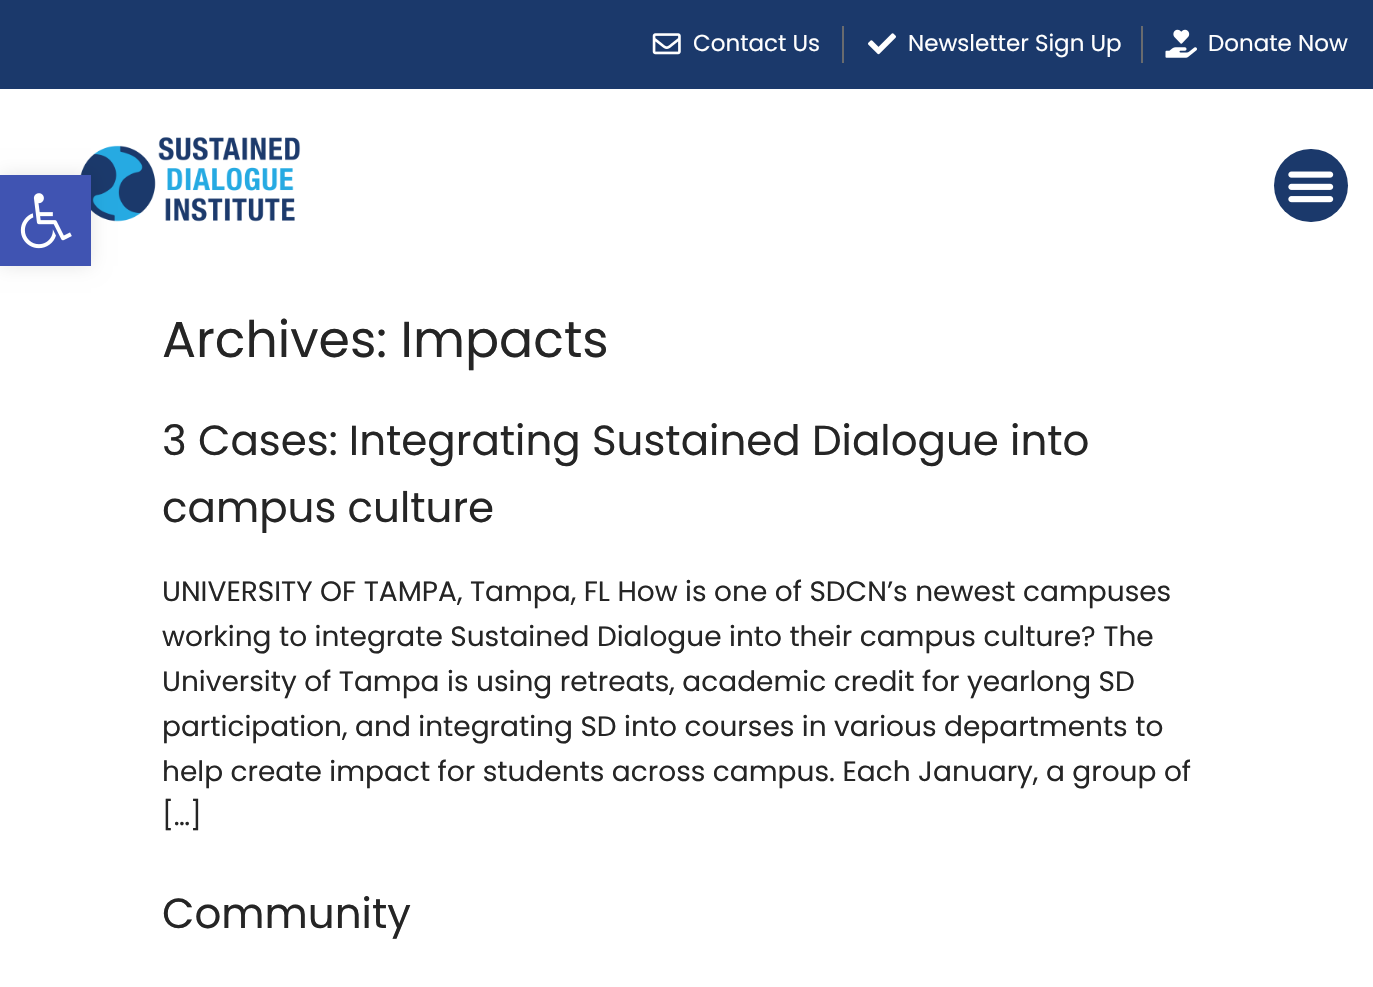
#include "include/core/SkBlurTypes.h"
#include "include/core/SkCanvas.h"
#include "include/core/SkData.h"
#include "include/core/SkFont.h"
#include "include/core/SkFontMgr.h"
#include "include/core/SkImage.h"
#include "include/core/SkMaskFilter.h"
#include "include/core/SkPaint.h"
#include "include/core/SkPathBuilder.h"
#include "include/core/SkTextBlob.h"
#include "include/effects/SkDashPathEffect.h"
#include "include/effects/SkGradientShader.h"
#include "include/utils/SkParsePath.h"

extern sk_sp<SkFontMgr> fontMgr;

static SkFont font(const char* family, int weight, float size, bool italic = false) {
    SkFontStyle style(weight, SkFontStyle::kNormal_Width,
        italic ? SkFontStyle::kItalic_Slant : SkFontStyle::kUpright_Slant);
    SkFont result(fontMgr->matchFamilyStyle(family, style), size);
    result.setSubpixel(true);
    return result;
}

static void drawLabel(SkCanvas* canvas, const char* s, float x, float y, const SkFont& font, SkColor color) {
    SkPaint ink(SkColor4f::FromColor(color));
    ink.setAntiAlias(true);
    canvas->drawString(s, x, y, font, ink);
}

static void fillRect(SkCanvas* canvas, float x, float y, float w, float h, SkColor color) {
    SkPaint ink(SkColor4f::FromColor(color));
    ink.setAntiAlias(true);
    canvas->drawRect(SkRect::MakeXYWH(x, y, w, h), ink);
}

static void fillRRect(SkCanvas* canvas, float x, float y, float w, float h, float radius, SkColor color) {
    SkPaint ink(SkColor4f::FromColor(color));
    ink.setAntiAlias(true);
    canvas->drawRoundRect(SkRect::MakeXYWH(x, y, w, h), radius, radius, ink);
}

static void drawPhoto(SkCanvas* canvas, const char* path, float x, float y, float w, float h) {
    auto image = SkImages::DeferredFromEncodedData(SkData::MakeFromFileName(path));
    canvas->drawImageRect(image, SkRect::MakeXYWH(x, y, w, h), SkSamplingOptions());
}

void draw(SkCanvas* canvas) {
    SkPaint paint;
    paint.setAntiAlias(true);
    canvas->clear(0xFFFFFFFF);
    fillRect(canvas, 0, 0, 1373, 89, 0xFF1B396B);
    drawPhoto(canvas, "assets/img1.png", 652, 33, 29, 22);
    SkFont font1 = font("Poppins", 400, 23);
    drawLabel(canvas, "Contact Us", 693, 51, font1, 0xFFFFFFFF);
    fillRect(canvas, 842, 26, 2, 37, 0xFF696B6E);
    drawPhoto(canvas, "assets/img2.png", 868, 33, 28, 22);
    drawLabel(canvas, "Newsletter Sign Up", 908, 51, font1, 0xFFFFFFFF);
    fillRect(canvas, 1141, 26, 2, 37, 0xFF696B6E);
    drawPhoto(canvas, "assets/img3.png", 1165, 29, 32, 29);
    drawLabel(canvas, "Donate Now", 1208, 51, font1, 0xFFFFFFFF);
    drawPhoto(canvas, "assets/img4.png", 80, 137, 221, 85);
    fillRRect(canvas, 1274, 149, 74, 73, 36.5f, 0xFF1B396B);
    drawPhoto(canvas, "assets/img5.png", 1288, 171, 46, 32);
    paint.setColor(0x1A000000);
    paint.setMaskFilter(SkMaskFilter::MakeBlur(kNormal_SkBlurStyle, 9));
    canvas->drawRect(SkRect::MakeXYWH(0, 175, 91, 91), paint);
    paint.setMaskFilter(nullptr);
    fillRect(canvas, 0, 175, 91, 91, 0xFF4054B2);
    drawPhoto(canvas, "assets/img6.png", 20, 193, 52, 56);
    SkFont font2 = font("Poppins", 400, 50.5f);
    drawLabel(canvas, "Archives: Impacts", 162, 357, font2, 0xFF252525);
    SkFont font3 = font("Poppins", 400, 42);
    drawLabel(canvas, "3 Cases: Integrating Sustained Dialogue into", 162, 455, font3, 0xFF252525);
    drawLabel(canvas, "campus culture", 162, 522, font3, 0xFF252525);
    SkFont font4 = font("Poppins", 400, 28);
    drawLabel(canvas, "UNIVERSITY OF TAMPA, Tampa, FL How is one of SDCN’s newest campuses", 162, 601, font4, 0xFF252525);
    drawLabel(canvas, "working to integrate Sustained Dialogue into their campus culture? The", 162, 646, font4, 0xFF252525);
    drawLabel(canvas, "University of Tampa is using retreats, academic credit for yearlong SD", 162, 691, font4, 0xFF252525);
    drawLabel(canvas, "participation, and integrating SD into courses in various departments to", 162, 736, font4, 0xFF252525);
    drawLabel(canvas, "help create impact for students across campus. Each January, a group of", 162, 781, font4, 0xFF252525);
    drawLabel(canvas, "[…]", 162, 825, font4, 0xFF252525);
    drawLabel(canvas, "Community", 162, 928, font3, 0xFF252525);
}
